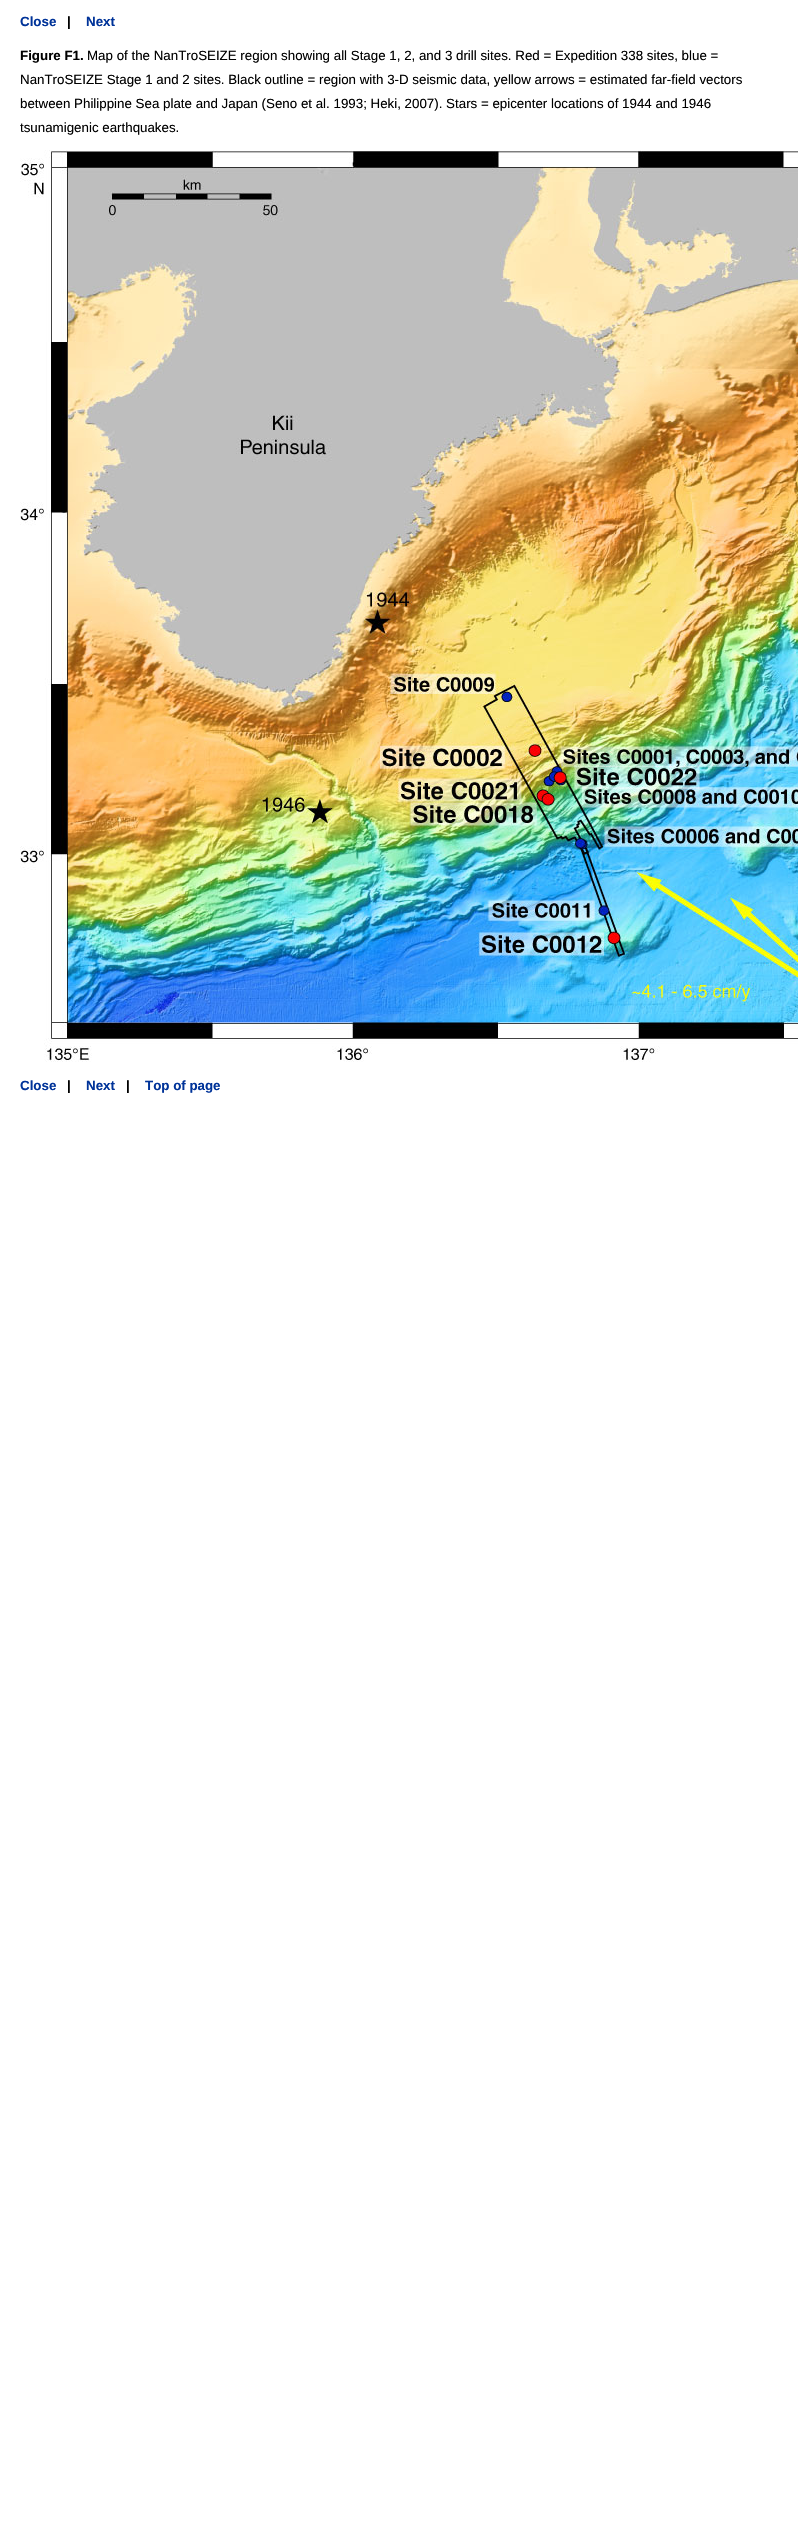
#include "include/core/SkBlurTypes.h"
#include "include/core/SkCanvas.h"
#include "include/core/SkData.h"
#include "include/core/SkFont.h"
#include "include/core/SkFontMgr.h"
#include "include/core/SkImage.h"
#include "include/core/SkMaskFilter.h"
#include "include/core/SkPaint.h"
#include "include/core/SkPathBuilder.h"
#include "include/core/SkTextBlob.h"
#include "include/effects/SkDashPathEffect.h"
#include "include/effects/SkGradientShader.h"
#include "include/utils/SkParsePath.h"

extern sk_sp<SkFontMgr> fontMgr;

static SkFont font(const char* family, int weight, float size, bool italic = false) {
    SkFontStyle style(weight, SkFontStyle::kNormal_Width,
        italic ? SkFontStyle::kItalic_Slant : SkFontStyle::kUpright_Slant);
    SkFont result(fontMgr->matchFamilyStyle(family, style), size);
    result.setSubpixel(true);
    return result;
}

static void drawLabel(SkCanvas* canvas, const char* s, float x, float y, const SkFont& font, SkColor color) {
    SkPaint ink(SkColor4f::FromColor(color));
    ink.setAntiAlias(true);
    canvas->drawString(s, x, y, font, ink);
}

static void drawPhoto(SkCanvas* canvas, const char* path, float x, float y, float w, float h) {
    auto image = SkImages::DeferredFromEncodedData(SkData::MakeFromFileName(path));
    canvas->drawImageRect(image, SkRect::MakeXYWH(x, y, w, h), SkSamplingOptions());
}

void draw(SkCanvas* canvas) {
    SkPaint paint;
    paint.setAntiAlias(true);
    canvas->clear(0xFFFFFFFF);
    SkFont font1 = font("Liberation Sans", 700, 13.33f);
    drawLabel(canvas, "Close", 20, 26, font1, 0xFF003399);
    drawLabel(canvas, "|", 67, 26, font1, 0xFF000000);
    drawLabel(canvas, "Next", 86, 26, font1, 0xFF003399);
    drawLabel(canvas, "Figure F1.", 20, 60, font1, 0xFF000000);
    SkFont font2 = font("Liberation Sans", 400, 13.33f);
    drawLabel(canvas, "Map of the NanTroSEIZE region showing all Stage 1, 2, and 3 drill sites. Red = Expedition 338 sites, blue =", 87, 60, font2, 0xFF000000);
    drawLabel(canvas, "NanTroSEIZE Stage 1 and 2 sites. Black outline = region with 3-D seismic data, yellow arrows = estimated far-field vectors", 20, 84, font2, 0xFF000000);
    drawLabel(canvas, "between Philippine Sea plate and Japan (Seno et al. 1993; Heki, 2007). Stars = epicenter locations of 1944 and 1946", 20, 108, font2, 0xFF000000);
    drawLabel(canvas, "tsunamigenic earthquakes.", 20, 132, font2, 0xFF000000);
    drawPhoto(canvas, "assets/img1.png", 20, 150, 778, 912);
    drawLabel(canvas, "Close", 20, 1090, font1, 0xFF003399);
    drawLabel(canvas, "|", 67, 1090, font1, 0xFF000000);
    drawLabel(canvas, "Next", 86, 1090, font1, 0xFF003399);
    drawLabel(canvas, "|", 126, 1090, font1, 0xFF000000);
    drawLabel(canvas, "Top of page", 145, 1090, font1, 0xFF003399);
}
